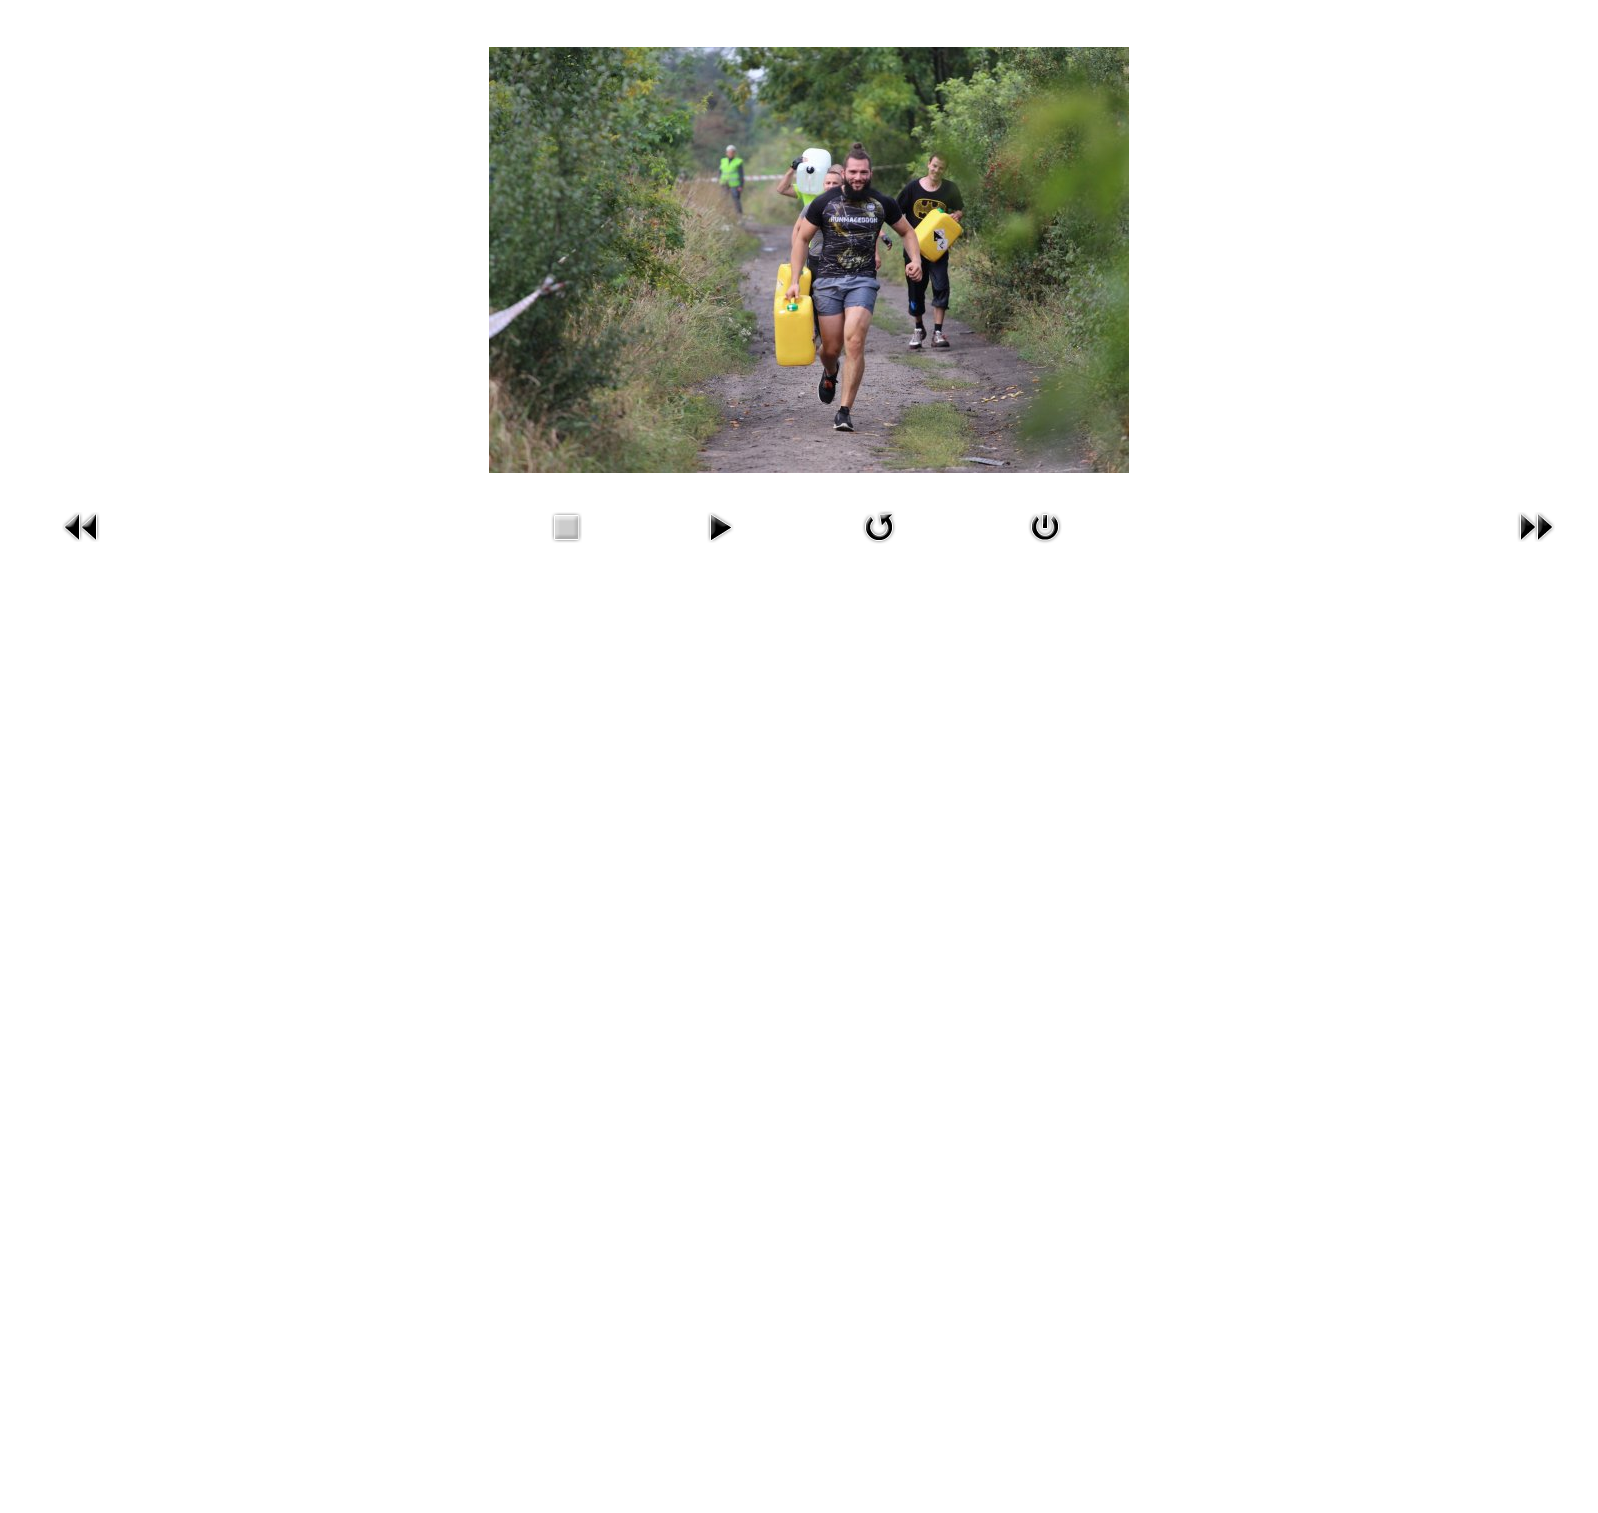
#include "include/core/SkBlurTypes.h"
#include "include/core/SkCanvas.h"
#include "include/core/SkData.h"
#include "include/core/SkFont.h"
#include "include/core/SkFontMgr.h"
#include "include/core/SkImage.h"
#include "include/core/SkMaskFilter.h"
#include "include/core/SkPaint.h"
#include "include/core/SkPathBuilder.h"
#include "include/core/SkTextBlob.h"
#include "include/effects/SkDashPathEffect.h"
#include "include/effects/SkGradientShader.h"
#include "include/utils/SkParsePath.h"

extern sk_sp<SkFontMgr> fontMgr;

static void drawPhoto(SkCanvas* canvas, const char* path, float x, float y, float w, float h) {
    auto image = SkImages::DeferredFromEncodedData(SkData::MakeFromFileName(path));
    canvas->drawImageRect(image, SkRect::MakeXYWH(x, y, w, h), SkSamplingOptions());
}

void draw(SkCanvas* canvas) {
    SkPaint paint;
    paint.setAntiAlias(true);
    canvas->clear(0xFFFFFFFF);
    drawPhoto(canvas, "assets/img1.png", 489, 47, 640, 426);
    drawPhoto(canvas, "assets/img2.png", 62, 512, 38, 30);
    drawPhoto(canvas, "assets/img3.png", 551, 512, 31, 31);
    drawPhoto(canvas, "assets/img4.png", 707, 512, 27, 31);
    drawPhoto(canvas, "assets/img5.png", 862, 510, 34, 34);
    drawPhoto(canvas, "assets/img6.png", 1028, 511, 34, 33);
    drawPhoto(canvas, "assets/img7.png", 1517, 512, 38, 30);
}
